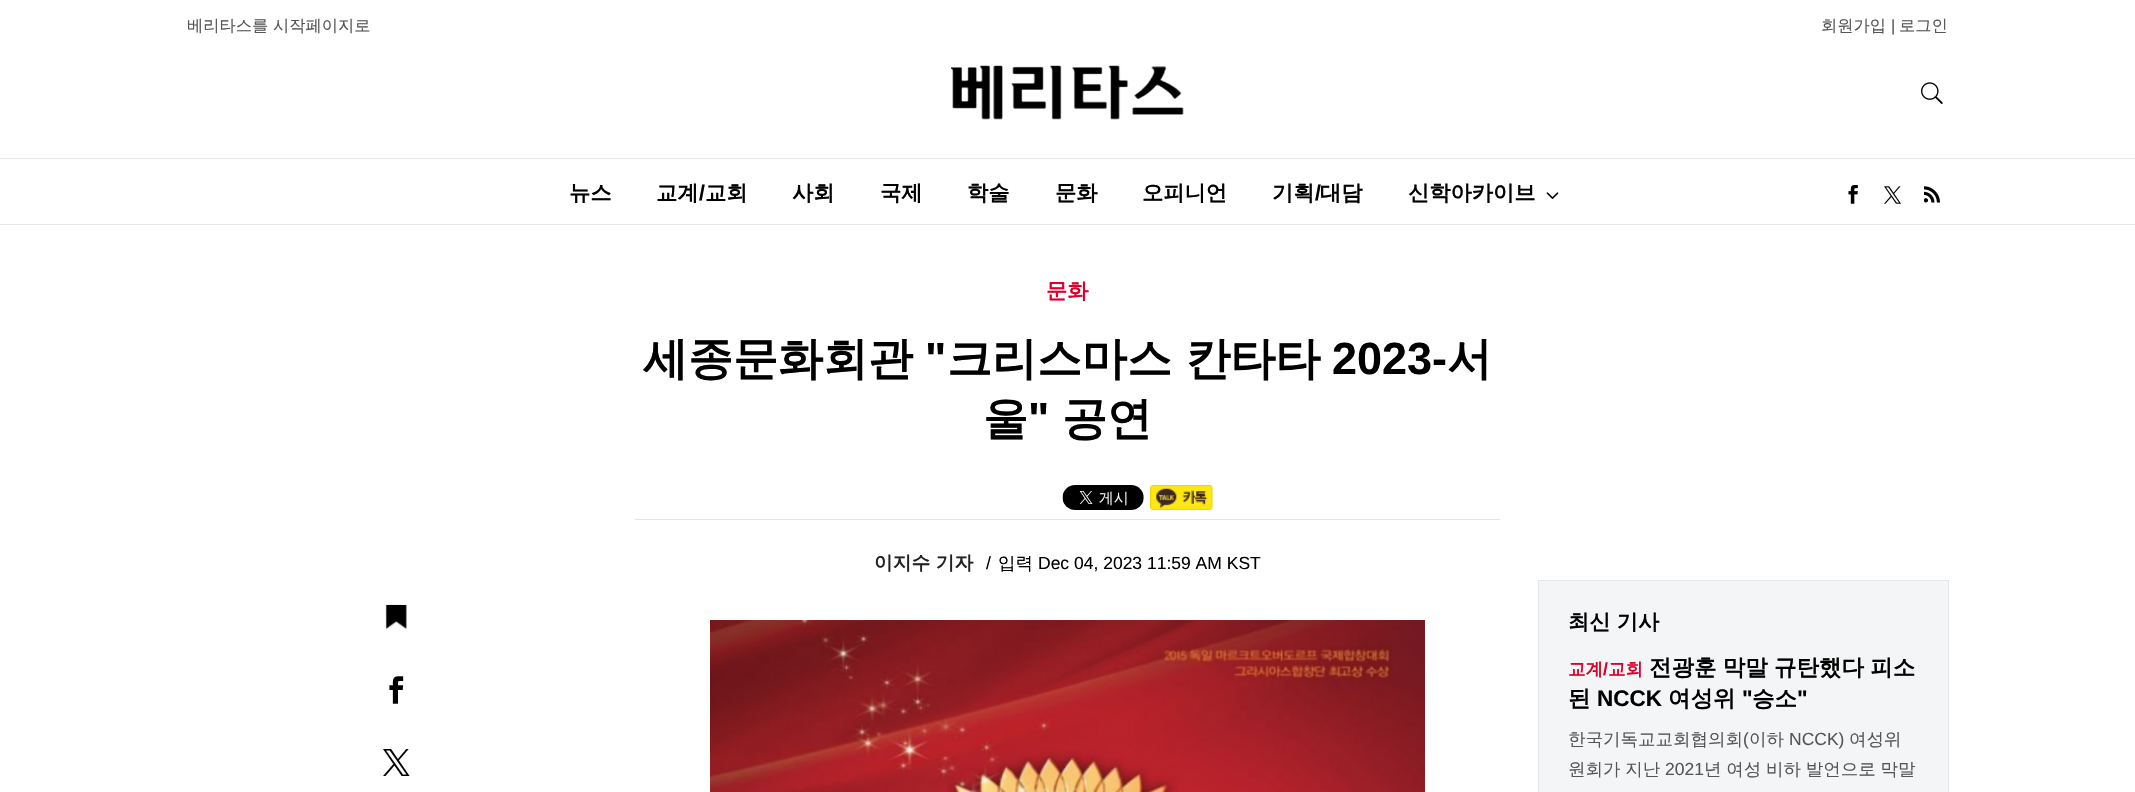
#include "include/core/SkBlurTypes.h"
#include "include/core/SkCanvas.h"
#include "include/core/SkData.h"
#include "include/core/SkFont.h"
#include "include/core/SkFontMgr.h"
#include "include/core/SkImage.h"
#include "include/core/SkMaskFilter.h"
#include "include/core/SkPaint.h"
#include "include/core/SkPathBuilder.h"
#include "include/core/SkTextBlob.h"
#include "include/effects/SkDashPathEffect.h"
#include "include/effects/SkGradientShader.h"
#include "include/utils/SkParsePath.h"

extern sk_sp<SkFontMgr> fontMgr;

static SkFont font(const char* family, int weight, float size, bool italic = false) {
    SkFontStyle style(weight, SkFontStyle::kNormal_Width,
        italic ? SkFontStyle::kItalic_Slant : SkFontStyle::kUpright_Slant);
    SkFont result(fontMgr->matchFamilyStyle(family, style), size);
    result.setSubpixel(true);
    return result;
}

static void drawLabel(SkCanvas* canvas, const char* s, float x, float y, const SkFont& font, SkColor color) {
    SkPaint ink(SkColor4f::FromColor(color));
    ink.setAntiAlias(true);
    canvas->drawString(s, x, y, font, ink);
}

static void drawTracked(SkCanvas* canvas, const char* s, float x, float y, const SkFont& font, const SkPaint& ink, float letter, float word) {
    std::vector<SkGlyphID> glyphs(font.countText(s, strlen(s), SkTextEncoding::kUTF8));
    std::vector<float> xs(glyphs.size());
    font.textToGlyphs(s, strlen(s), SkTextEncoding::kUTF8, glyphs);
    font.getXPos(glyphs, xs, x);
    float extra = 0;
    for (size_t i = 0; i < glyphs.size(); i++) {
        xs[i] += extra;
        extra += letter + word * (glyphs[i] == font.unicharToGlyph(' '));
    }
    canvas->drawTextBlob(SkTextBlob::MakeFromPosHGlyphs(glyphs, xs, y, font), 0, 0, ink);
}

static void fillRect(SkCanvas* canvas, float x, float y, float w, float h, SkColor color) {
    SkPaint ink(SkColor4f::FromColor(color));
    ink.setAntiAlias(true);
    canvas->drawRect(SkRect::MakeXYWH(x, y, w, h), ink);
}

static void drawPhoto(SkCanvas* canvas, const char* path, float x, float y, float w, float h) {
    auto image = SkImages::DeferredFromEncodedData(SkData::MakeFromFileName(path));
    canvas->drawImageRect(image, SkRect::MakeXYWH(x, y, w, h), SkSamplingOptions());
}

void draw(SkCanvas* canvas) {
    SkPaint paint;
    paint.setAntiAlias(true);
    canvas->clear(0xFFFFFFFF);
    SkFont font1 = font("WenQuanYi Zen Hei", 500, 16.25f);
    drawLabel(canvas, "베리타스를 시작페이지로", 187, 31, font1, 0xFF555555);
    drawLabel(canvas, "회원가입", 1821, 31, font1, 0xFF555555);
    SkFont font2 = font("Liberation Sans", 400, 16.25f);
    drawLabel(canvas, "|", 1891, 31, font2, 0xFF555555);
    drawLabel(canvas, "로그인", 1899, 31, font1, 0xFF555555);
    drawPhoto(canvas, "assets/img1.png", 951, 65, 233, 55);
    drawPhoto(canvas, "assets/img2.png", 1921, 82, 22, 22);
    fillRect(canvas, 0, 158, 2135, 1, 0xFFE8E8E8);
    fillRect(canvas, 0, 224, 2135, 1, 0xFFE8E8E8);
    SkFont font3 = font("WenQuanYi Zen Hei", 700, 21.25f);
    drawLabel(canvas, "뉴스", 569, 200, font3, 0xFF000000);
    drawLabel(canvas, "교계", 656, 200, font3, 0xFF000000);
    SkFont font4 = font("Liberation Sans", 700, 21.25f);
    drawLabel(canvas, "/", 699, 200, font4, 0xFF000000);
    drawLabel(canvas, "교회", 705, 200, font3, 0xFF000000);
    drawLabel(canvas, "사회", 792, 200, font3, 0xFF000000);
    drawLabel(canvas, "국제", 880, 200, font3, 0xFF000000);
    drawLabel(canvas, "학술", 967, 200, font3, 0xFF000000);
    drawLabel(canvas, "문화", 1055, 200, font3, 0xFF000000);
    drawLabel(canvas, "오피니언", 1142, 200, font3, 0xFF000000);
    drawLabel(canvas, "기획", 1272, 200, font3, 0xFF000000);
    drawLabel(canvas, "/", 1315, 200, font4, 0xFF000000);
    drawLabel(canvas, "대담", 1320, 200, font3, 0xFF000000);
    drawLabel(canvas, "신학아카이브", 1408, 200, font3, 0xFF000000);
    drawPhoto(canvas, "assets/img3.png", 1546, 192, 13, 7);
    drawPhoto(canvas, "assets/img4.png", 1848, 185, 10, 19);
    drawPhoto(canvas, "assets/img5.png", 1884, 186, 17, 18);
    drawPhoto(canvas, "assets/img6.png", 1924, 186, 16, 17);
    drawLabel(canvas, "문화", 1046, 298, font3, 0xFFDC0128);
    SkFont font5 = font("WenQuanYi Zen Hei", 700, 45);
    drawLabel(canvas, "세종문화회관", 643, 374, font5, 0xFF000000);
    SkFont font6 = font("Liberation Sans", 700, 45);
    drawLabel(canvas, "\"", 925, 374, font6, 0xFF000000);
    drawLabel(canvas, "크리스마스 칸타타", 947, 374, font5, 0xFF000000);
    drawLabel(canvas, "2023-", 1332, 374, font6, 0xFF000000);
    drawLabel(canvas, "서", 1447, 374, font5, 0xFF000000);
    drawLabel(canvas, "울", 983, 434, font5, 0xFF000000);
    drawLabel(canvas, "\"", 1028, 434, font6, 0xFF000000);
    drawLabel(canvas, "공연", 1062, 434, font5, 0xFF000000);
    drawPhoto(canvas, "assets/img7.png", 1062, 485, 82, 25);
    drawPhoto(canvas, "assets/img8.png", 1150, 485, 63, 25);
    fillRect(canvas, 635, 519, 865, 1, 0xFFE5E5E5);
    SkFont font7 = font("WenQuanYi Zen Hei", 700, 18.75f);
    drawLabel(canvas, "이지수 기자", 874, 569, font7, 0xFF222222);
    SkFont font8 = font("Liberation Sans", 400, 17.5f);
    drawLabel(canvas, "/", 986, 569, font8, 0xFF000000);
    SkFont font9 = font("WenQuanYi Zen Hei", 500, 17.5f);
    drawLabel(canvas, "입력", 998, 569, font9, 0xFF000000);
    drawLabel(canvas, "Dec 04, 2023 11:59 AM KST", 1038, 569, font8, 0xFF000000);
    drawPhoto(canvas, "assets/img9.png", 385, 604, 22, 26);
    drawPhoto(canvas, "assets/img10.png", 389, 676, 15, 28);
    drawPhoto(canvas, "assets/img11.png", 383, 749, 27, 27);
    drawPhoto(canvas, "assets/img12.png", 710, 620, 715, 172);
    paint.setColor(0xFFF4F5F7);
    canvas->drawRect(SkRect::MakeXYWH(1538.5f, 580.5f, 410, 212), paint);
    paint.setStroke(true);
    paint.setStrokeWidth(1);
    paint.setColor(0xFFE5E5E5);
    canvas->drawRect(SkRect::MakeXYWH(1538.5f, 580.5f, 410, 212), paint);
    drawLabel(canvas, "최신 기사", 1568, 629, font3, 0xFF000000);
    SkFont font10 = font("WenQuanYi Zen Hei", 700, 17.5f);
    drawLabel(canvas, "교계", 1568, 675, font10, 0xFFDC0128);
    SkFont font11 = font("Liberation Sans", 700, 17.5f);
    drawLabel(canvas, "/", 1603, 675, font11, 0xFFDC0128);
    drawLabel(canvas, "교회", 1608, 675, font10, 0xFFDC0128);
    SkFont font12 = font("WenQuanYi Zen Hei", 700, 22.5f);
    paint.setStroke(false);
    paint.setColor(0xFF000000);
    drawTracked(canvas, "전광훈 막말 규탄했다 피소", 1649, 675, font12, paint, 0, -0.5f);
    drawLabel(canvas, "된", 1568, 706, font12, 0xFF000000);
    SkFont font13 = font("Liberation Sans", 700, 22.5f);
    drawLabel(canvas, "NCCK", 1597, 706, font13, 0xFF000000);
    drawLabel(canvas, "여성위", 1668, 706, font12, 0xFF000000);
    drawLabel(canvas, "\"", 1742, 706, font13, 0xFF000000);
    drawLabel(canvas, "승소", 1752, 706, font12, 0xFF000000);
    drawLabel(canvas, "\"", 1797, 706, font13, 0xFF000000);
    drawLabel(canvas, "한국기독교교회협의회", 1568, 745, font9, 0xFF555555);
    drawLabel(canvas, "(", 1743, 745, font8, 0xFF555555);
    drawLabel(canvas, "이하", 1749, 745, font9, 0xFF555555);
    drawLabel(canvas, "NCCK)", 1789, 745, font8, 0xFF555555);
    drawLabel(canvas, "여성위", 1849, 745, font9, 0xFF555555);
    paint.setColor(0xFF555555);
    drawTracked(canvas, "원회가 지난", 1568, 775, font9, paint, 0, -0.5f);
    drawLabel(canvas, "2021", 1665, 775, font8, 0xFF555555);
    drawTracked(canvas, "년 여성 비하 발언으로 막말", 1704, 775, font9, paint, 0, -0.5f);
}
